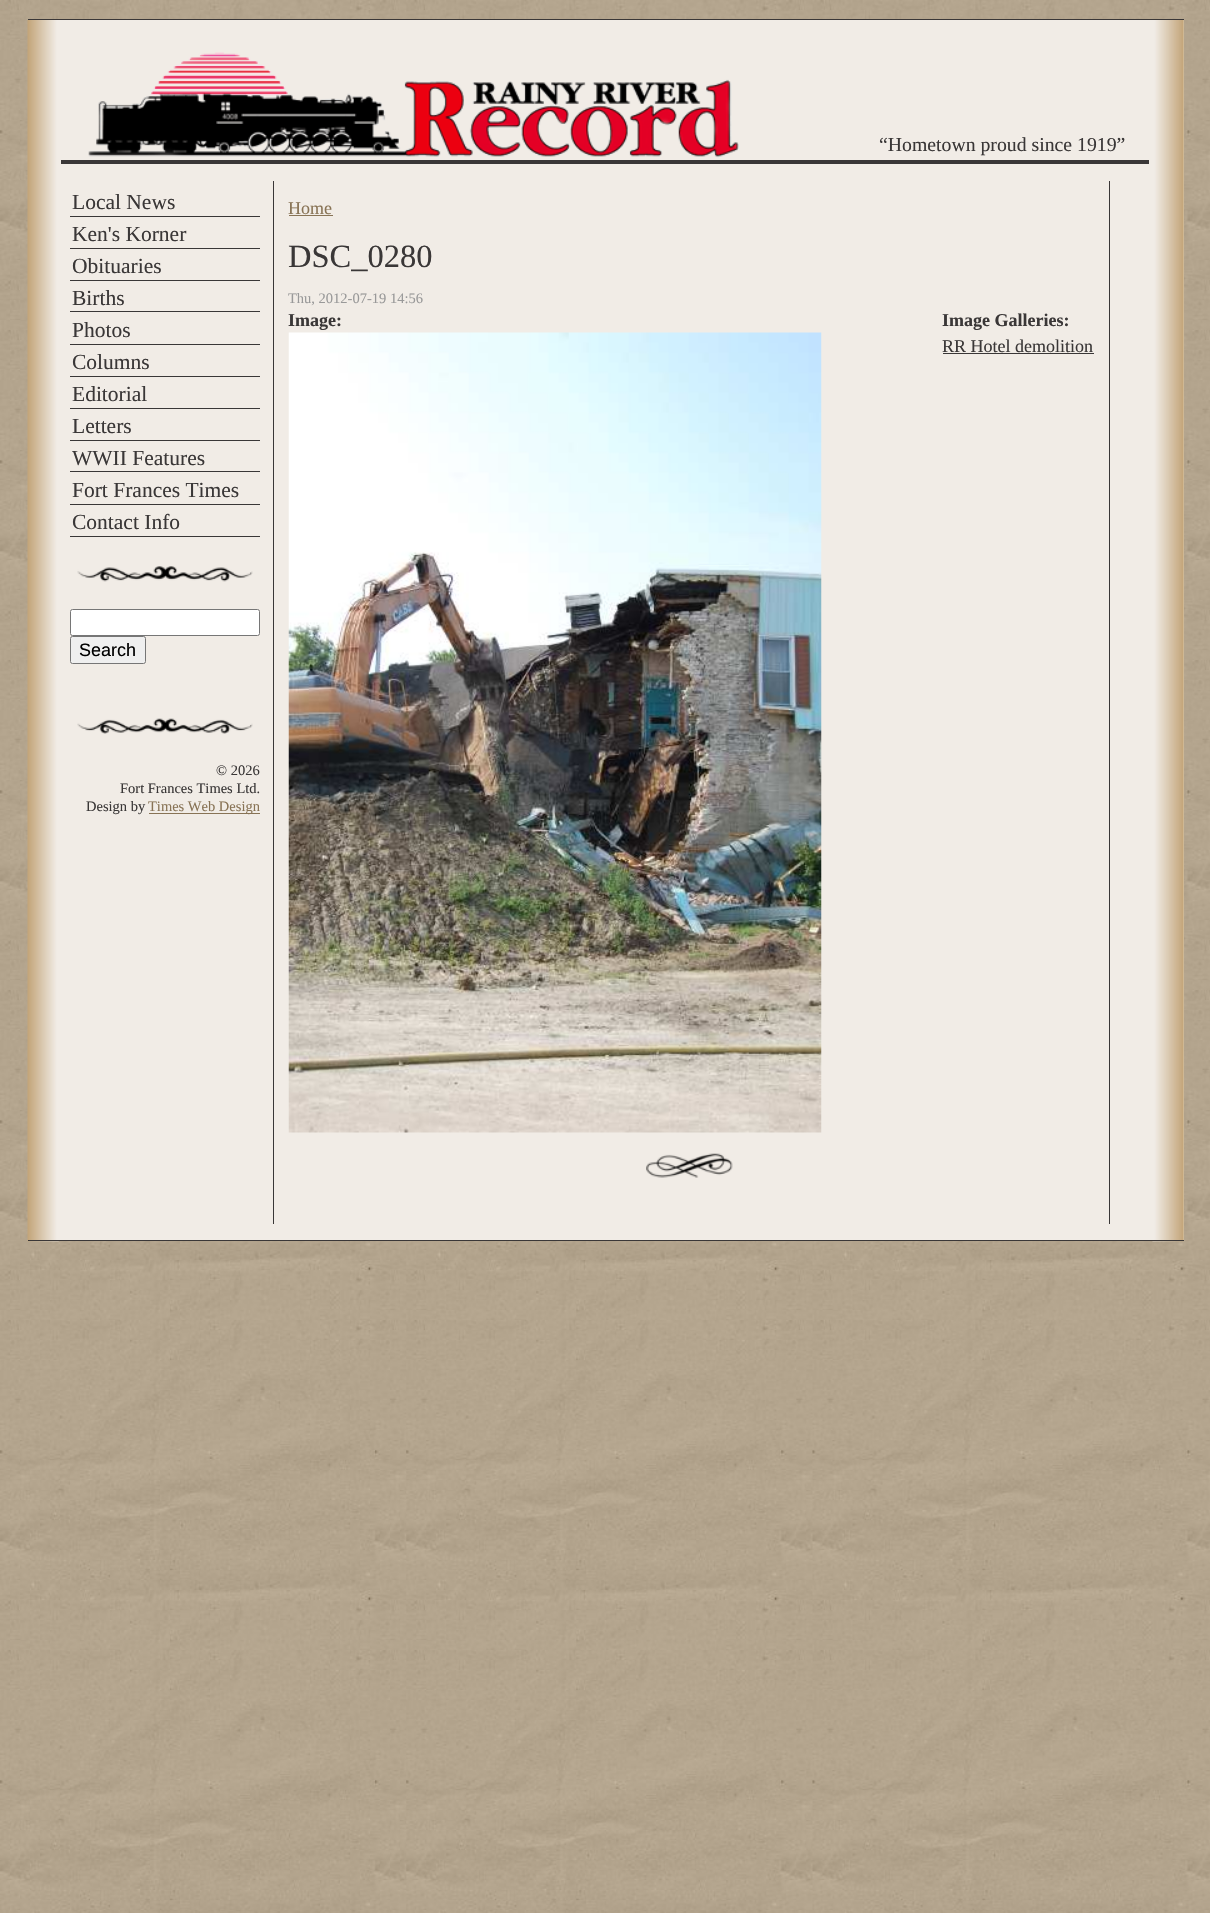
#include "include/core/SkBlurTypes.h"
#include "include/core/SkCanvas.h"
#include "include/core/SkData.h"
#include "include/core/SkFont.h"
#include "include/core/SkFontMgr.h"
#include "include/core/SkImage.h"
#include "include/core/SkMaskFilter.h"
#include "include/core/SkPaint.h"
#include "include/core/SkPathBuilder.h"
#include "include/core/SkTextBlob.h"
#include "include/effects/SkDashPathEffect.h"
#include "include/effects/SkGradientShader.h"
#include "include/utils/SkParsePath.h"

extern sk_sp<SkFontMgr> fontMgr;

static SkFont font(const char* family, int weight, float size, bool italic = false) {
    SkFontStyle style(weight, SkFontStyle::kNormal_Width,
        italic ? SkFontStyle::kItalic_Slant : SkFontStyle::kUpright_Slant);
    SkFont result(fontMgr->matchFamilyStyle(family, style), size);
    result.setSubpixel(true);
    return result;
}

static void drawLabel(SkCanvas* canvas, const char* s, float x, float y, const SkFont& font, SkColor color) {
    SkPaint ink(SkColor4f::FromColor(color));
    ink.setAntiAlias(true);
    canvas->drawString(s, x, y, font, ink);
}

static void fillRect(SkCanvas* canvas, float x, float y, float w, float h, SkColor color) {
    SkPaint ink(SkColor4f::FromColor(color));
    ink.setAntiAlias(true);
    canvas->drawRect(SkRect::MakeXYWH(x, y, w, h), ink);
}

static void drawPhoto(SkCanvas* canvas, const char* path, float x, float y, float w, float h) {
    auto image = SkImages::DeferredFromEncodedData(SkData::MakeFromFileName(path));
    canvas->drawImageRect(image, SkRect::MakeXYWH(x, y, w, h), SkSamplingOptions());
}

void draw(SkCanvas* canvas) {
    SkPaint paint;
    paint.setAntiAlias(true);
    canvas->clear(0xFFFFFFFF);
    drawPhoto(canvas, "assets/img1.png", 0, 0, 1210, 1913);
    fillRect(canvas, 58, 20, 1126, 1220, 0xFFF1ECE6);
    fillRect(canvas, 28, 19, 1156, 1, 0xFF3A3737);
    drawPhoto(canvas, "assets/img2.png", 27, 20, 32, 1222);
    drawPhoto(canvas, "assets/img3.png", 1152, 20, 32, 1222);
    fillRect(canvas, 28, 1240, 1156, 1, 0xFF3A3737);
    fillRect(canvas, 61, 160, 1088, 4, 0xFF3A3737);
    drawPhoto(canvas, "assets/img4.png", 88, 52, 651, 106);
    SkFont font1 = font("Liberation Serif", 400, 19.75f);
    drawLabel(canvas, "“Hometown proud since 1919”", 879, 151, font1, 0xFF3A3737);
    fillRect(canvas, 273, 181, 1, 1043, 0xFF3A3737);
    fillRect(canvas, 70, 216, 190, 1, 0xFF3A3737);
    SkFont font2 = font("Liberation Serif", 400, 21.5f);
    drawLabel(canvas, "Local News", 72, 209, font2, 0xFF3A3737);
    fillRect(canvas, 70, 248, 190, 1, 0xFF3A3737);
    drawLabel(canvas, "Ken's Korner", 72, 241, font2, 0xFF3A3737);
    fillRect(canvas, 70, 280, 190, 1, 0xFF3A3737);
    drawLabel(canvas, "Obituaries", 72, 273, font2, 0xFF3A3737);
    fillRect(canvas, 70, 311, 190, 1, 0xFF3A3737);
    drawLabel(canvas, "Births", 72, 305, font2, 0xFF3A3737);
    fillRect(canvas, 70, 344, 190, 1, 0xFF3A3737);
    drawLabel(canvas, "Photos", 72, 337, font2, 0xFF3A3737);
    fillRect(canvas, 70, 376, 190, 1, 0xFF3A3737);
    drawLabel(canvas, "Columns", 72, 369, font2, 0xFF3A3737);
    fillRect(canvas, 70, 408, 190, 1, 0xFF3A3737);
    drawLabel(canvas, "Editorial", 72, 401, font2, 0xFF3A3737);
    fillRect(canvas, 70, 440, 190, 1, 0xFF3A3737);
    drawLabel(canvas, "Letters", 72, 433, font2, 0xFF3A3737);
    fillRect(canvas, 70, 471, 190, 1, 0xFF3A3737);
    drawLabel(canvas, "WWII Features", 72, 465, font2, 0xFF3A3737);
    fillRect(canvas, 70, 504, 190, 1, 0xFF3A3737);
    drawLabel(canvas, "Fort Frances Times", 72, 497, font2, 0xFF3A3737);
    fillRect(canvas, 70, 536, 190, 1, 0xFF3A3737);
    drawLabel(canvas, "Contact Info", 72, 529, font2, 0xFF3A3737);
    drawPhoto(canvas, "assets/img5.png", 77, 566, 176, 16);
    paint.setColor(0xFFFFFFFF);
    canvas->drawRoundRect(SkRect::MakeXYWH(70.5f, 609.5f, 189, 26), 2, 2, paint);
    paint.setStroke(true);
    paint.setStrokeWidth(1);
    paint.setColor(0xFF767676);
    canvas->drawRoundRect(SkRect::MakeXYWH(70.5f, 609.5f, 189, 26), 2, 2, paint);
    paint.setStroke(false);
    paint.setColor(0xFFEFEFEF);
    canvas->drawRoundRect(SkRect::MakeXYWH(70.5f, 636.5f, 75, 27), 2, 2, paint);
    paint.setStroke(true);
    paint.setColor(0xFF767676);
    canvas->drawRoundRect(SkRect::MakeXYWH(70.5f, 636.5f, 75, 27), 2, 2, paint);
    SkFont font3 = font("Liberation Sans", 400, 18);
    drawLabel(canvas, "Search", 79, 656, font3, 0xFF000000);
    drawPhoto(canvas, "assets/img6.png", 77, 718, 176, 16);
    SkFont font4 = font("Liberation Serif", 400, 14.5f);
    drawLabel(canvas, "© 2026", 216, 775, font4, 0xFF3A3737);
    drawLabel(canvas, "Fort Frances Times Ltd.", 120, 793, font4, 0xFF3A3737);
    drawLabel(canvas, "Design by", 86, 811, font4, 0xFF3A3737);
    fillRect(canvas, 149, 813, 111, 1, 0xFF887355);
    drawLabel(canvas, "Times Web Design", 148, 811, font4, 0xFF887355);
    SkFont font5 = font("Liberation Serif", 400, 18);
    drawLabel(canvas, "Home", 288, 214, font5, 0xFF887355);
    fillRect(canvas, 289, 215, 44, 1, 0xFF887355);
    SkFont font6 = font("Liberation Serif", 400, 32.5f);
    drawLabel(canvas, "DSC_0280", 288, 267, font6, 0xFF3A3737);
    drawPhoto(canvas, "assets/img7.png", 646, 1153, 87, 25);
    drawLabel(canvas, "Thu, 2012-07-19 14:56", 288, 303, font4, 0xFF999999);
    SkFont font7 = font("Liberation Serif", 700, 18);
    drawLabel(canvas, "Image:", 288, 326, font7, 0xFF3A3737);
    drawPhoto(canvas, "assets/img8.png", 288, 332, 534, 801);
    drawLabel(canvas, "Image Galleries:", 942, 326, font7, 0xFF3A3737);
    drawLabel(canvas, "RR Hotel demolition", 942, 352, font5, 0xFF3A3737);
    fillRect(canvas, 943, 353, 151, 1, 0xFF3A3737);
    fillRect(canvas, 1109, 181, 1, 1043, 0xFF3A3737);
}
